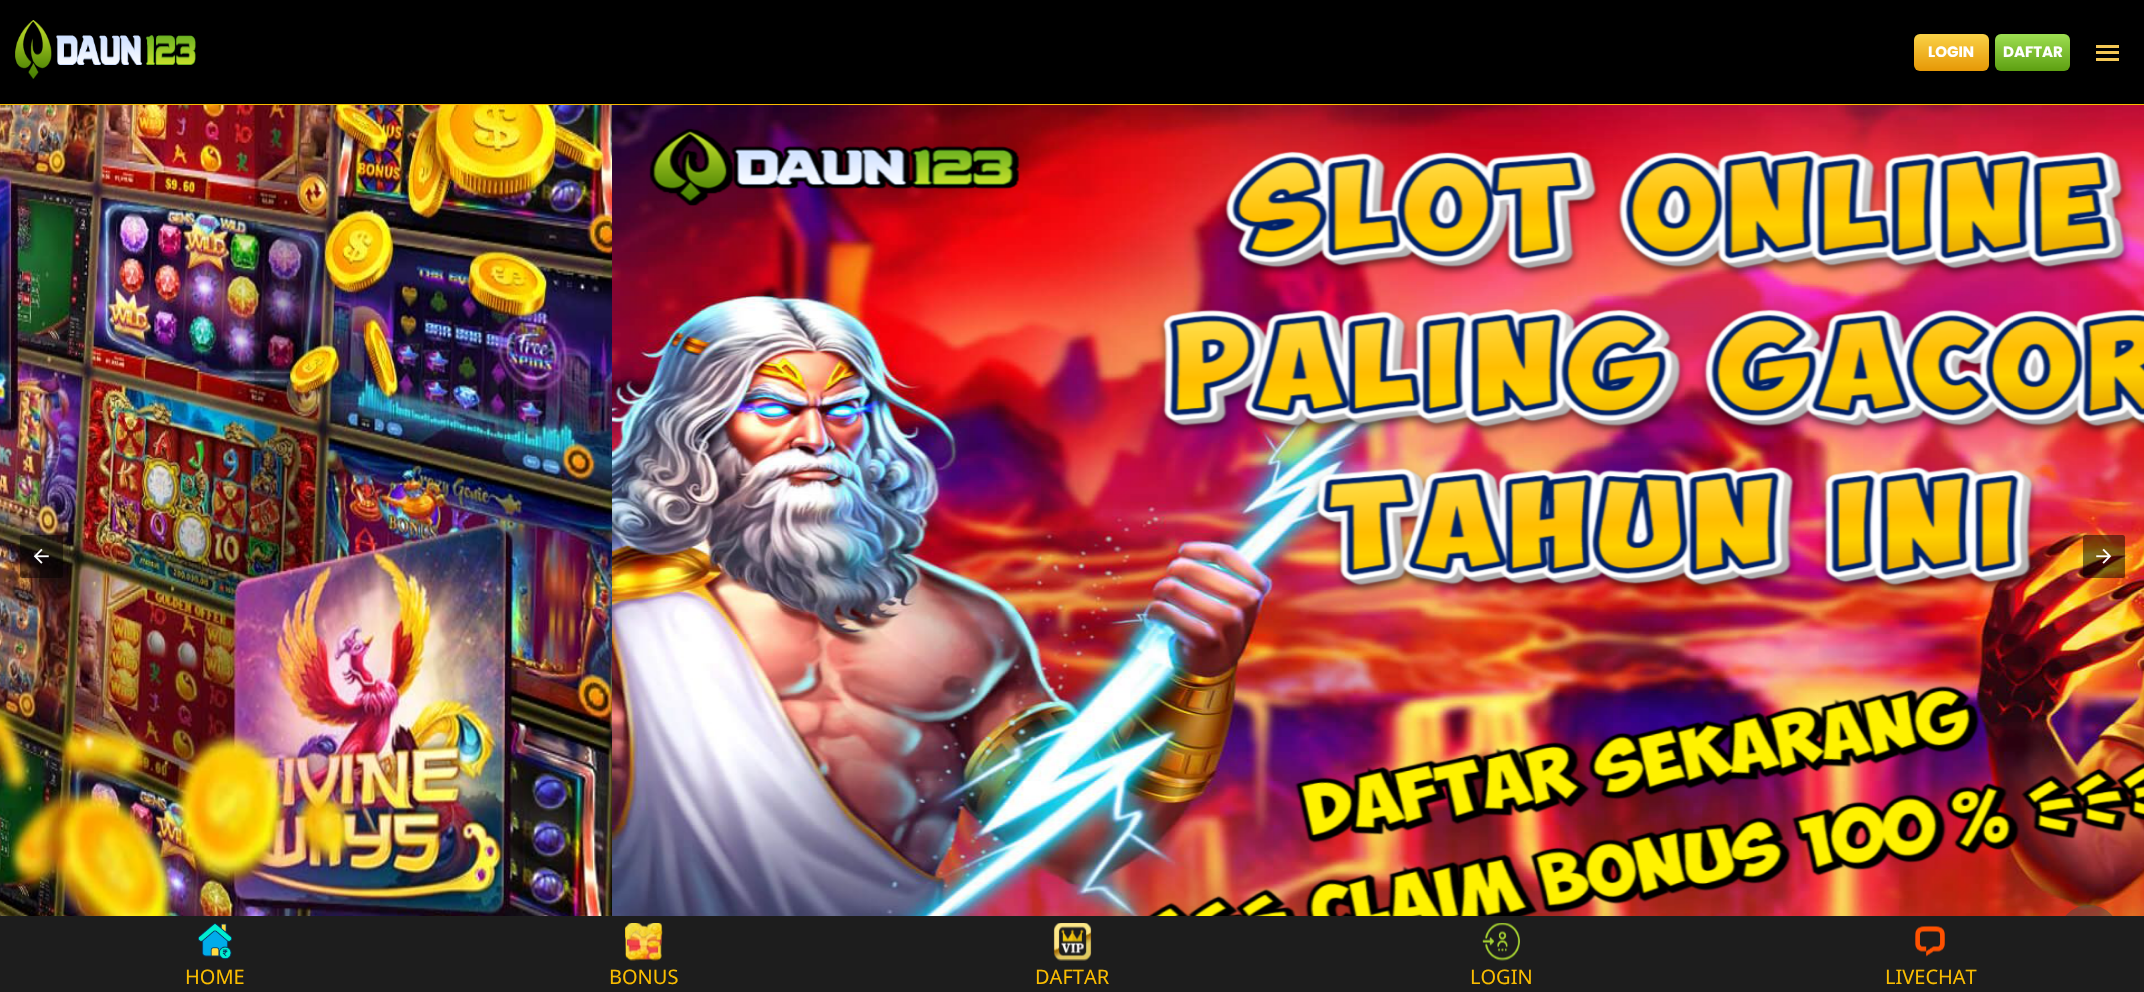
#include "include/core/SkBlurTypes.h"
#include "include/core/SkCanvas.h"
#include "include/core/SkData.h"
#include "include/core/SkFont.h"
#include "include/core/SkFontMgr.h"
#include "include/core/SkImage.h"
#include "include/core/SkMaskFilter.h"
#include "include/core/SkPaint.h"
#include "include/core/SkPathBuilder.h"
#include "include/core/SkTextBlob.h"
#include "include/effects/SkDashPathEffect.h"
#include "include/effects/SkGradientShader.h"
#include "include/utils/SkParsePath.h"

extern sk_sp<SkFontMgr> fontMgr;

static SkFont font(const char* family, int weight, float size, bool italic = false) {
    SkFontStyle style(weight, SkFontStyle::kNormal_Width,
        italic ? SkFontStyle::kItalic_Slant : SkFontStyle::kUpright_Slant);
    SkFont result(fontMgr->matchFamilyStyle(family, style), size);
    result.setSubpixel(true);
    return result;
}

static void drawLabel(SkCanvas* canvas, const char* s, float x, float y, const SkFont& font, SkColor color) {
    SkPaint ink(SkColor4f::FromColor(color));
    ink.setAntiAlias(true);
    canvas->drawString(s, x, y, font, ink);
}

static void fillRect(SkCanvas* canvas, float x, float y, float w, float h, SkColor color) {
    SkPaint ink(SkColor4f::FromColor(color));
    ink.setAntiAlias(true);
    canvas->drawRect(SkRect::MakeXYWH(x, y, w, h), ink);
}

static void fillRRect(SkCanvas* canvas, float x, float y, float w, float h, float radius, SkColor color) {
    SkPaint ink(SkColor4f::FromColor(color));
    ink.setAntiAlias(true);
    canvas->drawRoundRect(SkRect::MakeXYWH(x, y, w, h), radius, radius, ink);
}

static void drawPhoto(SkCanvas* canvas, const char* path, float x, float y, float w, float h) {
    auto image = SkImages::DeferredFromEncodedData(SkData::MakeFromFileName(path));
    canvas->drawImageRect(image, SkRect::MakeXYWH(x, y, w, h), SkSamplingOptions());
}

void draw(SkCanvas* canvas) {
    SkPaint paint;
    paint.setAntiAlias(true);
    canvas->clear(0xFF000000);
    fillRect(canvas, 0, 104, 2144, 1, 0xFFF9BC00);
    drawPhoto(canvas, "assets/img1.png", 15, 20, 181, 59);
    {
        const SkColor colors[] = {0xFFFAD247, 0xFFE69806};
        const float stops[] = {0, 1};
        const SkPoint ends[] = {{1951, 34}, {1951, 71}};
        paint.setShader(SkGradientShader::MakeLinear(ends, colors, stops, 2, SkTileMode::kClamp));
        paint.setAlpha(255);
    }
    canvas->drawRoundRect(SkRect::MakeXYWH(1914, 34, 75, 37), 6, 6, paint);
    SkFont font1 = font("Poppins", 700, 15);
    drawLabel(canvas, "LOGIN", 1928, 57, font1, 0xFFFFFFFF);
    {
        const SkColor colors[] = {0xFF9EDF52, 0xFF5D9F11};
        const float stops[] = {0, 1};
        const SkPoint ends[] = {{2033, 34}, {2033, 71}};
        paint.setShader(SkGradientShader::MakeLinear(ends, colors, stops, 2, SkTileMode::kClamp));
        paint.setAlpha(255);
    }
    canvas->drawRoundRect(SkRect::MakeXYWH(1995, 34, 75, 37), 6, 6, paint);
    drawLabel(canvas, "DAFTAR", 2003, 57, font1, 0xFFFFFFFF);
    fillRect(canvas, 2096, 51, 23, 3, 0xFFF5C855);
    fillRect(canvas, 2096, 45, 23, 3, 0xFFF5C855);
    fillRect(canvas, 2096, 58, 23, 3, 0xFFF5C855);
    drawPhoto(canvas, "assets/img2.png", 0, 105, 612, 811);
    drawPhoto(canvas, "assets/img3.png", 612, 105, 1532, 811);
    fillRRect(canvas, 20, 535, 43, 43, 2.5f, 0x80000000);
    drawPhoto(canvas, "assets/img4.png", 33, 548, 16, 16);
    fillRRect(canvas, 2083, 535, 42, 43, 2.5f, 0x80000000);
    drawPhoto(canvas, "assets/img5.png", 2096, 548, 16, 16);
    fillRRect(canvas, 2058, 905, 62, 63, 31, 0x80474747);
    fillRect(canvas, 0, 916, 2144, 76, 0xFF1D1D1D);
    drawPhoto(canvas, "assets/img6.png", 198, 923, 34, 37);
    SkFont font2 = font("Noto Sans", 400, 20);
    drawLabel(canvas, "HOME", 185, 984, font2, 0xFFF9BC00);
    drawPhoto(canvas, "assets/img7.png", 625, 923, 38, 38);
    drawLabel(canvas, "BONUS", 609, 984, font2, 0xFFF9BC00);
    drawPhoto(canvas, "assets/img8.png", 1053, 923, 39, 38);
    drawLabel(canvas, "DAFTAR", 1035, 984, font2, 0xFFF9BC00);
    drawPhoto(canvas, "assets/img9.png", 1482, 923, 38, 38);
    drawLabel(canvas, "LOGIN", 1470, 984, font2, 0xFFF9BC00);
    drawPhoto(canvas, "assets/img10.png", 1915, 925, 30, 32);
    drawLabel(canvas, "LIVECHAT", 1885, 984, font2, 0xFFF9BC00);
}
